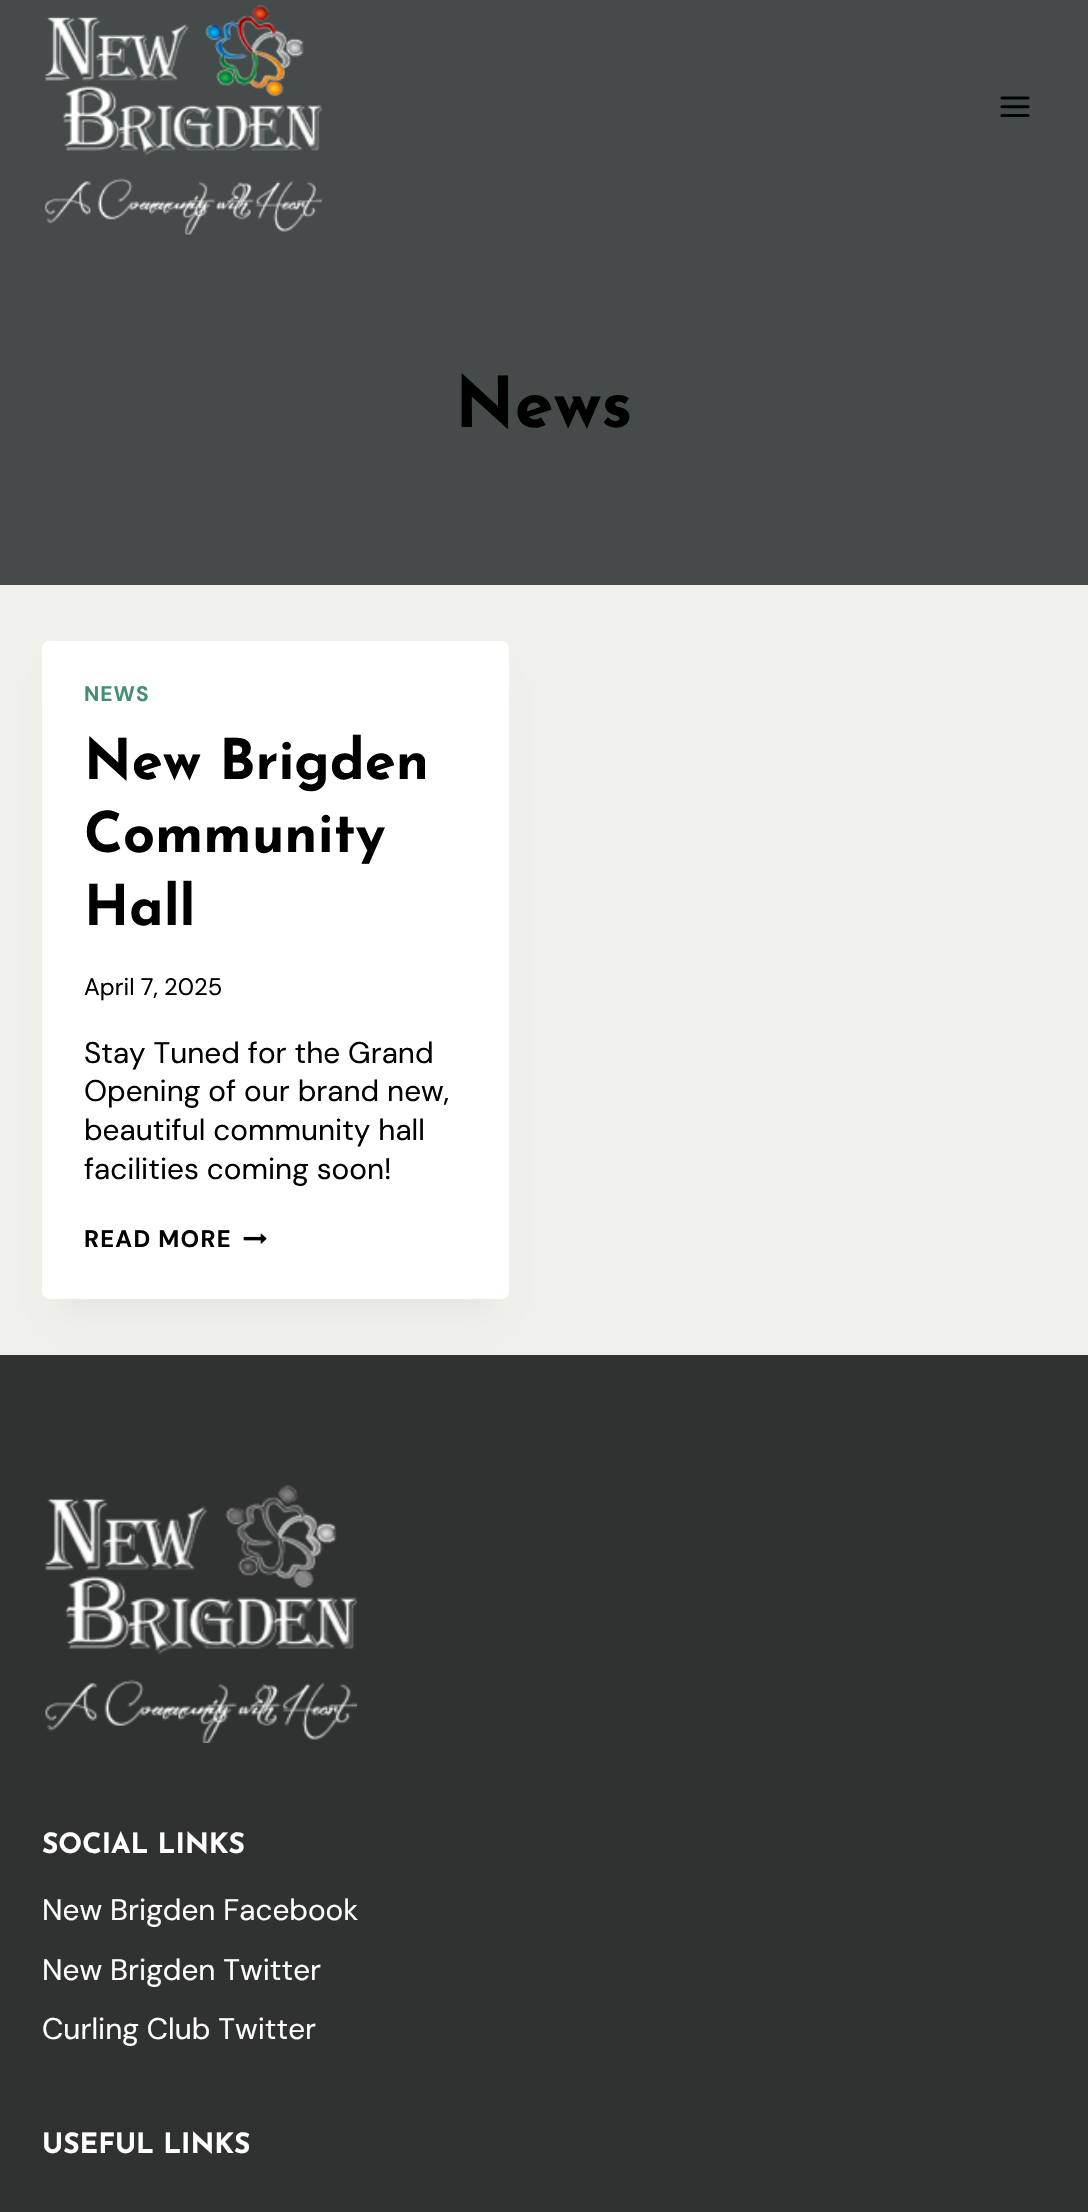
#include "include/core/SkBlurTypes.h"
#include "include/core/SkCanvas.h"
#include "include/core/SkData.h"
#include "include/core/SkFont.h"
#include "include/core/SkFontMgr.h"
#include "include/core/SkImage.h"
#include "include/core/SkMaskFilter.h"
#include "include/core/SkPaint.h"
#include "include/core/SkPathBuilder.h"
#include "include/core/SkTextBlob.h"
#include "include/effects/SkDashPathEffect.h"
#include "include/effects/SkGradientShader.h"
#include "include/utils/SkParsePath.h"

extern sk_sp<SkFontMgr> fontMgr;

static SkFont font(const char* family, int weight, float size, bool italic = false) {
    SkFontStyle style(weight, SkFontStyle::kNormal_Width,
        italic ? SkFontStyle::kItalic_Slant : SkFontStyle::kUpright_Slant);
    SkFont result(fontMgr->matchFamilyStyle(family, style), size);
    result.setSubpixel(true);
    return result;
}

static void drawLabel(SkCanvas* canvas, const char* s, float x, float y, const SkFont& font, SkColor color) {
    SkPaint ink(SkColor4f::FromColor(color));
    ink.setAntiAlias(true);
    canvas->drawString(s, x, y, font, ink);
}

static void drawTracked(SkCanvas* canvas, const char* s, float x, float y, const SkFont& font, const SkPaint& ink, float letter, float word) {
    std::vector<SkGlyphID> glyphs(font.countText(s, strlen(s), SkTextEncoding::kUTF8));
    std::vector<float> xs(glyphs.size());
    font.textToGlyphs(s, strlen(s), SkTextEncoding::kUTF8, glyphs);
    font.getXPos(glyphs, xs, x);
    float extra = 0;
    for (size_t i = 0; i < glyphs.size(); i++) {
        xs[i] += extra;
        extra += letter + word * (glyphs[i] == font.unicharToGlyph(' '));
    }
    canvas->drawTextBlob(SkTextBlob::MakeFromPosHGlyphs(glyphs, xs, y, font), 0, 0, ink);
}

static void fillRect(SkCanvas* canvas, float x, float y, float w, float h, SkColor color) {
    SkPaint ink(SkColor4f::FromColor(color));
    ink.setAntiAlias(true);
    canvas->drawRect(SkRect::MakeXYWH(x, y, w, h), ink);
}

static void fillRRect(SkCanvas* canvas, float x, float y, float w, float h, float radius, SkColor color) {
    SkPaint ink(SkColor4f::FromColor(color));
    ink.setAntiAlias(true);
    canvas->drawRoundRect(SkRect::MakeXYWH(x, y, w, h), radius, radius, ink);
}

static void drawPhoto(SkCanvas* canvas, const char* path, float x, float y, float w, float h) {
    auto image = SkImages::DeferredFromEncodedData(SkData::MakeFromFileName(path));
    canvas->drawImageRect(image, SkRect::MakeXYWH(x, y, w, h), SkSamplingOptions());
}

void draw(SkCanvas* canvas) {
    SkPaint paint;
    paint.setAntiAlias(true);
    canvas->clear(0xFFF0F1EB);
    fillRect(canvas, 0, 0, 1088, 585, 0xFF454B4B);
    drawPhoto(canvas, "assets/img1.png", 44, 4, 278, 231);
    drawPhoto(canvas, "assets/img2.png", 1000, 96, 30, 21);
    SkFont font1 = font("Josefin Sans", 700, 70);
    drawLabel(canvas, "News", 455, 427, font1, 0xFF000000);
    paint.setColor(0x0D000000);
    paint.setMaskFilter(SkMaskFilter::MakeBlur(kNormal_SkBlurStyle, 13));
    canvas->drawRect(SkRect::MakeXYWH(60, 684, 432, 623), paint);
    paint.setMaskFilter(nullptr);
    fillRRect(canvas, 42, 641, 467, 658, 7, 0xFFFFFFFF);
    SkFont font2 = font("DM Sans", 700, 21);
    paint.setColor(0xFF438F71);
    drawTracked(canvas, "NEWS", 84, 701, font2, paint, 1, 0);
    SkFont font3 = font("Josefin Sans", 700, 56);
    drawLabel(canvas, "New Brigden", 84, 779, font3, 0xFF000000);
    drawLabel(canvas, "Community", 84, 852, font3, 0xFF000000);
    drawLabel(canvas, "Hall", 84, 925, font3, 0xFF000000);
    SkFont font4 = font("DM Sans", 400, 23.75f);
    drawLabel(canvas, "April 7, 2025", 84, 995, font4, 0xFF000000);
    SkFont font5 = font("DM Sans", 400, 29.75f);
    drawLabel(canvas, "Stay Tuned for the Grand", 84, 1063, font5, 0xFF000000);
    drawLabel(canvas, "Opening of our brand new,", 84, 1101, font5, 0xFF000000);
    drawLabel(canvas, "beautiful community hall", 84, 1140, font5, 0xFF000000);
    drawLabel(canvas, "facilities coming soon!", 84, 1179, font5, 0xFF000000);
    SkFont font6 = font("DM Sans", 700, 23.75f);
    paint.setColor(0xFF000000);
    drawTracked(canvas, "READ MORE", 84, 1247, font6, paint, 1.25f, 0);
    drawPhoto(canvas, "assets/img3.png", 243, 1233, 24, 11);
    fillRect(canvas, 0, 1355, 1088, 857, 0xFF303232);
    drawPhoto(canvas, "assets/img4.png", 44, 1484, 313, 259);
    SkFont font7 = font("Josefin Sans", 700, 28);
    drawLabel(canvas, "SOCIAL LINKS", 42, 1853, font7, 0xFFFFFFFF);
    drawLabel(canvas, "New Brigden Facebook", 42, 1920, font5, 0xFFFFFFFF);
    drawLabel(canvas, "New Brigden Twitter", 42, 1980, font5, 0xFFFFFFFF);
    drawLabel(canvas, "Curling Club Twitter", 42, 2039, font5, 0xFFFFFFFF);
    drawLabel(canvas, "USEFUL LINKS", 42, 2153, font7, 0xFFFFFFFF);
}
